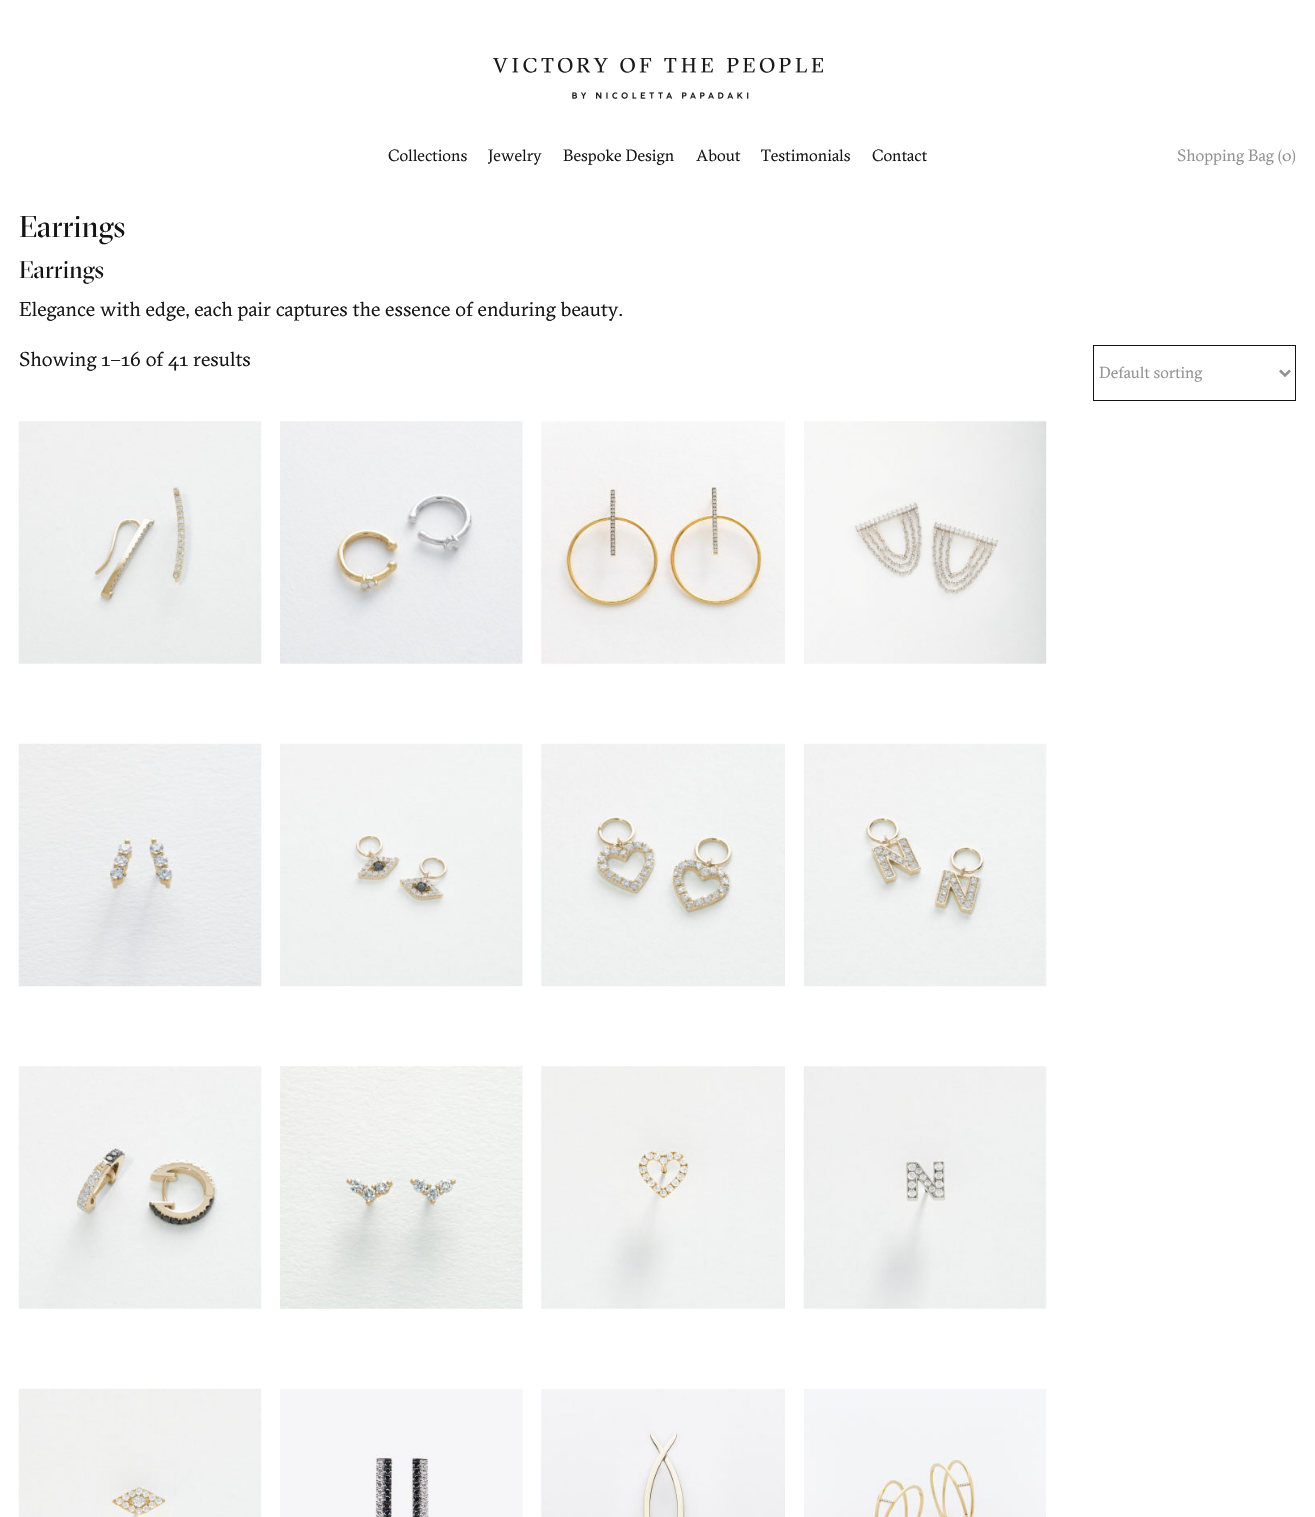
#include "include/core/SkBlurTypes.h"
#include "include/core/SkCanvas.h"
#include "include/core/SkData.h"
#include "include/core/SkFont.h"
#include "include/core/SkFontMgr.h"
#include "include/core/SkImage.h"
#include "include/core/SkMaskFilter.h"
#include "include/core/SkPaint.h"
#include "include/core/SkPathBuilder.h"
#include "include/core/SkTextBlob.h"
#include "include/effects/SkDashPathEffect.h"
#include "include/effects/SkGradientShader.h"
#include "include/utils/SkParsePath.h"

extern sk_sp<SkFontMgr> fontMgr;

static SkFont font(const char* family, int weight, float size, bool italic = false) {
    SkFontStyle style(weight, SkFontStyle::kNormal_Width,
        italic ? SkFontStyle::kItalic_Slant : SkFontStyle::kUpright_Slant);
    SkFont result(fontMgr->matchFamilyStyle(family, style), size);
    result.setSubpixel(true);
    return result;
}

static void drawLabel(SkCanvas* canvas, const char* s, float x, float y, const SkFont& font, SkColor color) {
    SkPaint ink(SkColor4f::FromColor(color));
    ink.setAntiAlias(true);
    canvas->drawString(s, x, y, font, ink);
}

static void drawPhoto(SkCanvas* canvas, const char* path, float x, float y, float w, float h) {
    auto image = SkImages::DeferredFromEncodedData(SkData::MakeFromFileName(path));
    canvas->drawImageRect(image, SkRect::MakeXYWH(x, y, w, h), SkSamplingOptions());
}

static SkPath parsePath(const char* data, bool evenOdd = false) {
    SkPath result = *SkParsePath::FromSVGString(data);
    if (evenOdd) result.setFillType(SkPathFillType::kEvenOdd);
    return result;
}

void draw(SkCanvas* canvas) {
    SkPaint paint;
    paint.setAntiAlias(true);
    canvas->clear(0xFFFFFFFF);
    drawPhoto(canvas, "assets/img1.png", 493, 58, 330, 41);
    SkFont font1 = font("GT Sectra", 400, 16.25f);
    drawLabel(canvas, "Collections", 388, 161, font1, 0xFF141414);
    drawLabel(canvas, "Jewelry", 488, 161, font1, 0xFF141414);
    drawLabel(canvas, "Bespoke Design", 563, 161, font1, 0xFF141414);
    drawLabel(canvas, "About", 696, 161, font1, 0xFF141414);
    drawLabel(canvas, "Testimonials", 761, 161, font1, 0xFF141414);
    drawLabel(canvas, "Contact", 872, 161, font1, 0xFF141414);
    drawLabel(canvas, "Shopping Bag (0)", 1177, 161, font1, 0xFF919191);
    SkFont font2 = font("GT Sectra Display", 400, 30);
    drawLabel(canvas, "Earrings", 19, 237, font2, 0xFF141414);
    SkFont font3 = font("GT Sectra Display", 400, 24);
    drawLabel(canvas, "Earrings", 19, 278, font3, 0xFF141414);
    SkFont font4 = font("GT Sectra", 400, 20);
    drawLabel(canvas, "Elegance with edge, each pair captures the essence of enduring beauty.", 19, 316, font4, 0xFF141414);
    drawLabel(canvas, "Showing 1–16 of 41 results", 19, 366, font4, 0xFF141414);
    paint.setStroke(true);
    paint.setStrokeWidth(1);
    paint.setColor(0xFF141414);
    canvas->drawRect(SkRect::MakeXYWH(1093.5f, 345.5f, 202, 55), paint);
    paint.setStrokeWidth(2.5f);
    paint.setColor(0xFF919191);
    canvas->drawPath(parsePath("M1280 370.5L1285 375.5L1290 370.5"), paint);
    SkFont font5 = font("GT Sectra", 400, 16);
    drawLabel(canvas, "Default sorting", 1099, 378, font5, 0xFF919191);
    drawPhoto(canvas, "assets/img2.png", 18, 421, 244, 243);
    drawPhoto(canvas, "assets/img3.png", 280, 421, 243, 243);
    drawPhoto(canvas, "assets/img4.png", 541, 421, 244, 243);
    drawPhoto(canvas, "assets/img5.png", 804, 421, 243, 243);
    drawPhoto(canvas, "assets/img6.png", 18, 743, 244, 244);
    drawPhoto(canvas, "assets/img7.png", 280, 743, 243, 244);
    drawPhoto(canvas, "assets/img8.png", 541, 743, 244, 244);
    drawPhoto(canvas, "assets/img9.png", 803, 743, 244, 244);
    drawPhoto(canvas, "assets/img10.png", 18, 1066, 244, 243);
    drawPhoto(canvas, "assets/img11.png", 280, 1066, 243, 243);
    drawPhoto(canvas, "assets/img12.png", 541, 1066, 244, 243);
    drawPhoto(canvas, "assets/img13.png", 803, 1066, 244, 243);
    drawPhoto(canvas, "assets/img14.png", 18, 1388, 244, 129);
    drawPhoto(canvas, "assets/img15.png", 280, 1389, 243, 128);
    drawPhoto(canvas, "assets/img16.png", 541, 1389, 244, 128);
    drawPhoto(canvas, "assets/img17.png", 804, 1389, 242, 128);
}
